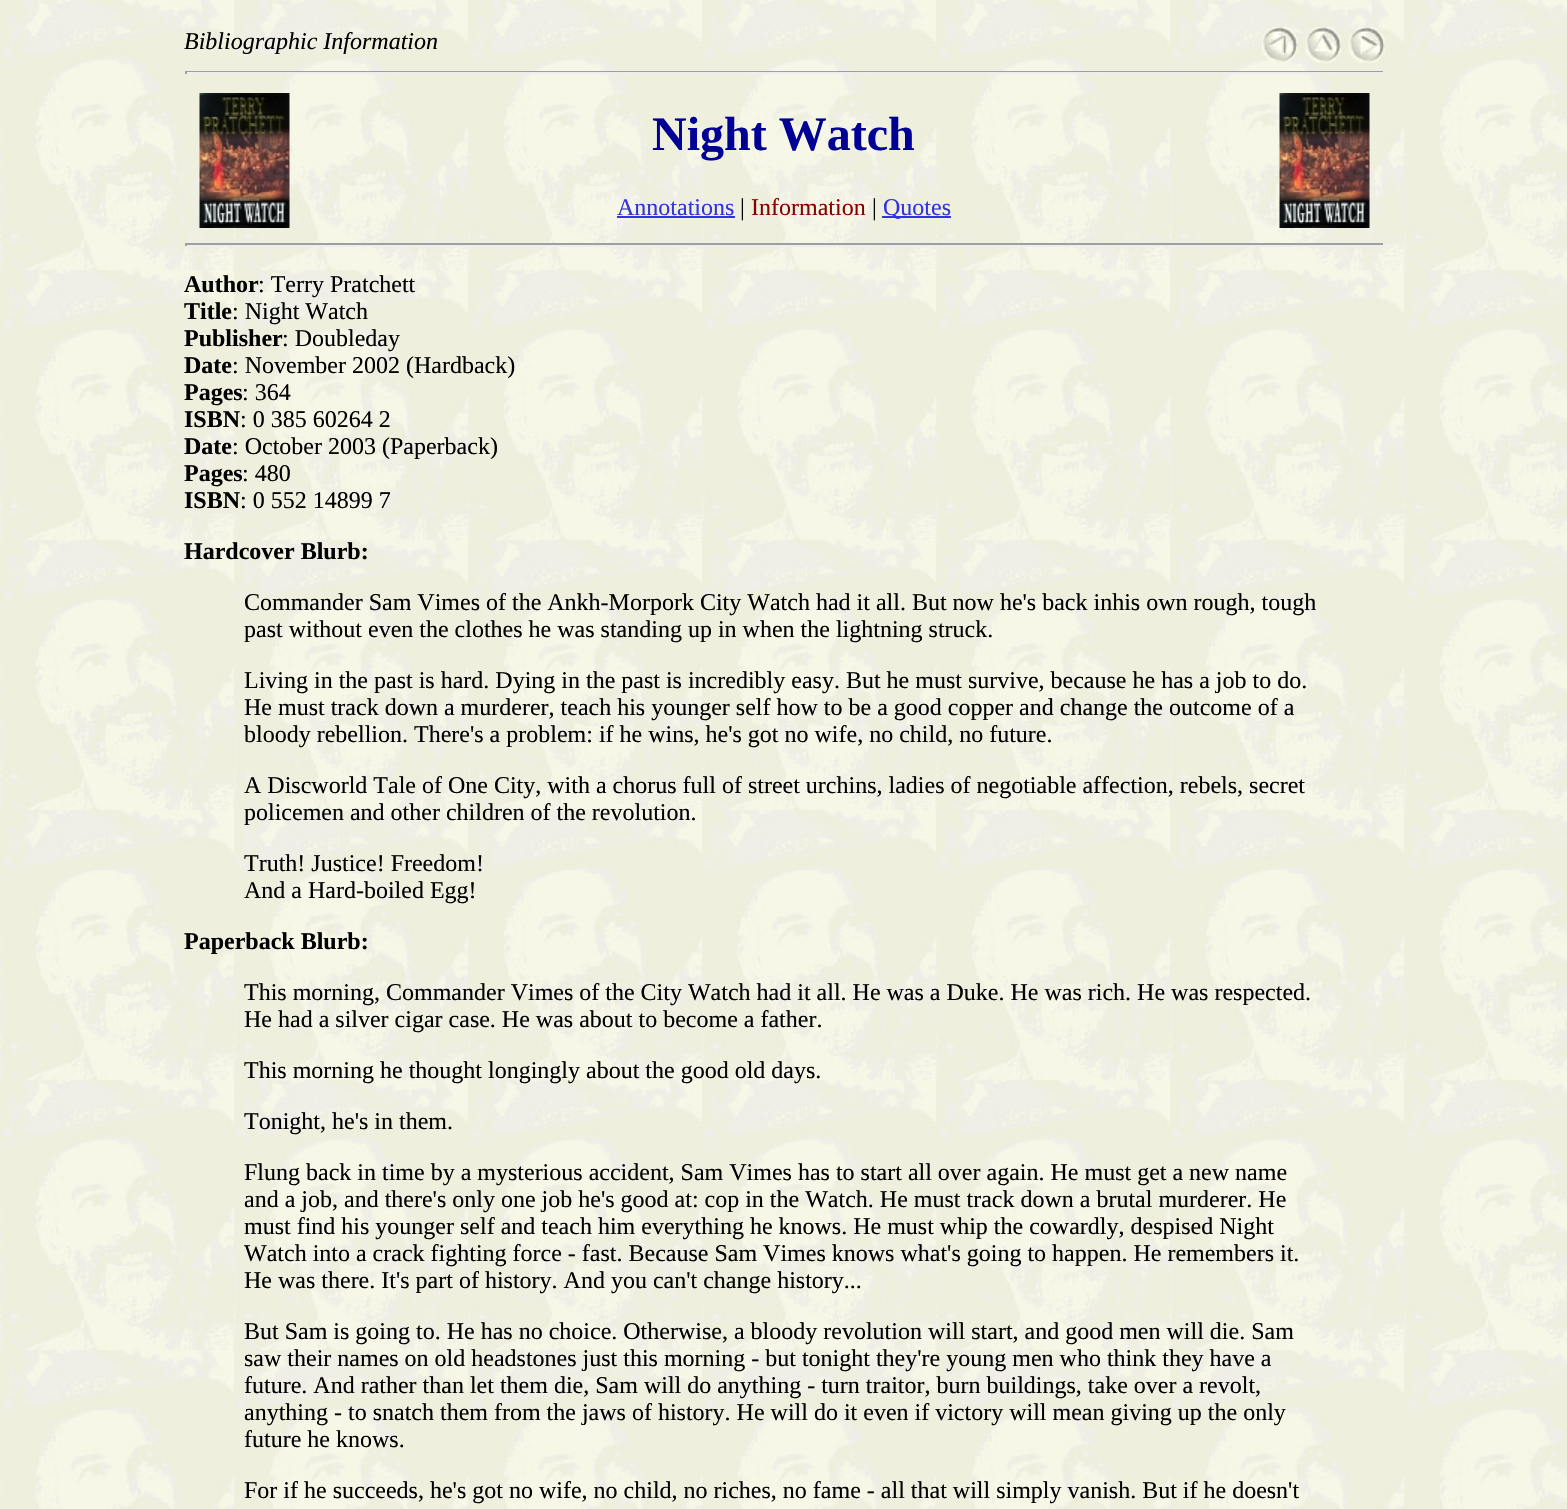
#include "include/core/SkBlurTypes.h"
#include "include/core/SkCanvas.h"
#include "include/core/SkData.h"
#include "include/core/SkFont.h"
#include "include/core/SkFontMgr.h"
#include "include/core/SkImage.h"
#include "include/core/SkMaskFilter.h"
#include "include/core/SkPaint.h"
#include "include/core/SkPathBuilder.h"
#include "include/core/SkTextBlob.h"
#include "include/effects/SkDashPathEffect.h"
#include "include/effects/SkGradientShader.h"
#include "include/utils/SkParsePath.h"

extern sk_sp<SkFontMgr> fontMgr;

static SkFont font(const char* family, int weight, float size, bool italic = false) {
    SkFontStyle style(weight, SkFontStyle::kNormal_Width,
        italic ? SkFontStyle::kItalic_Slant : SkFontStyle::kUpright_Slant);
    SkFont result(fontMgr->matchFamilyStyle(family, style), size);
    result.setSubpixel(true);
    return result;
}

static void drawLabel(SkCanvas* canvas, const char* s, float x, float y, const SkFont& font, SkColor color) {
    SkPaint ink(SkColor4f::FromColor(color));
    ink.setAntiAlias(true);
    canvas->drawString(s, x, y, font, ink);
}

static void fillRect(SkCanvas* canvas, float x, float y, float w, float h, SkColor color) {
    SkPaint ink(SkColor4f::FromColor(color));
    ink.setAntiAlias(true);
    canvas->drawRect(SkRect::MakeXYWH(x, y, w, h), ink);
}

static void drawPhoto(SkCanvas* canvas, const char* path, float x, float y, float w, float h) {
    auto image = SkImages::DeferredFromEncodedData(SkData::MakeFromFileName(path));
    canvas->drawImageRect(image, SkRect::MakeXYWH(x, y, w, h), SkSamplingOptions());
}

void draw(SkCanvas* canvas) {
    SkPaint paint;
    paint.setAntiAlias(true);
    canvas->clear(0xFFFFFFFF);
    drawPhoto(canvas, "assets/img1.png", 0, 0, 1567, 1509);
    SkFont font1 = font("Liberation Serif", 400, 24, true);
    drawLabel(canvas, "Bibliographic Information", 184, 49, font1, 0xFF000000);
    drawPhoto(canvas, "assets/img2.png", 1261, 27, 37, 36);
    drawPhoto(canvas, "assets/img3.png", 1305, 27, 36, 36);
    drawPhoto(canvas, "assets/img4.png", 1348, 27, 37, 36);
    fillRect(canvas, 185, 71, 1200, 1, 0xFF9F9F9F);
    fillRect(canvas, 1383, 71, 2, 3, 0xFFEEEEEE);
    fillRect(canvas, 185, 72, 1200, 2, 0xFFEEEEEE);
    fillRect(canvas, 185, 71, 2, 3, 0xFF9F9F9F);
    drawPhoto(canvas, "assets/img5.png", 199, 93, 91, 135);
    SkFont font2 = font("Liberation Serif", 700, 48);
    drawLabel(canvas, "Night Watch", 652, 150, font2, 0xFF000095);
    drawPhoto(canvas, "assets/img6.png", 1279, 93, 91, 135);
    SkFont font3 = font("Liberation Serif", 400, 24);
    drawLabel(canvas, "Annotations", 617, 215, font3, 0xFF3333DD);
    fillRect(canvas, 617, 216, 118, 2, 0xFF3333DD);
    drawLabel(canvas, "|", 740, 215, font3, 0xFF000000);
    drawLabel(canvas, "Information", 751, 215, font3, 0xFF880000);
    drawLabel(canvas, "|", 872, 215, font3, 0xFF000000);
    fillRect(canvas, 882, 216, 69, 2, 0xFF3333DD);
    drawLabel(canvas, "Quotes", 883, 215, font3, 0xFF3333DD);
    fillRect(canvas, 185, 243, 1200, 2, 0xFF9F9F9F);
    fillRect(canvas, 1383, 243, 2, 3, 0xFFEEEEEE);
    fillRect(canvas, 185, 245, 1200, 2, 0xFFEEEEEE);
    fillRect(canvas, 185, 243, 2, 3, 0xFF9F9F9F);
    SkFont font4 = font("Liberation Serif", 700, 24);
    drawLabel(canvas, "Author", 184, 292, font4, 0xFF000000);
    drawLabel(canvas, ": Terry Pratchett", 258, 292, font3, 0xFF000000);
    drawLabel(canvas, "Title", 184, 319, font4, 0xFF000000);
    drawLabel(canvas, ": Night Watch", 232, 319, font3, 0xFF000000);
    drawLabel(canvas, "Publisher", 184, 346, font4, 0xFF000000);
    drawLabel(canvas, ": Doubleday", 282, 346, font3, 0xFF000000);
    drawLabel(canvas, "Date", 184, 373, font4, 0xFF000000);
    drawLabel(canvas, ": November 2002 (Hardback)", 232, 373, font3, 0xFF000000);
    drawLabel(canvas, "Pages", 184, 400, font4, 0xFF000000);
    drawLabel(canvas, ": 364", 242, 400, font3, 0xFF000000);
    drawLabel(canvas, "ISBN", 184, 427, font4, 0xFF000000);
    drawLabel(canvas, ": 0 385 60264 2", 240, 427, font3, 0xFF000000);
    drawLabel(canvas, "Date", 184, 454, font4, 0xFF000000);
    drawLabel(canvas, ": October 2003 (Paperback)", 232, 454, font3, 0xFF000000);
    drawLabel(canvas, "Pages", 184, 481, font4, 0xFF000000);
    drawLabel(canvas, ": 480", 242, 481, font3, 0xFF000000);
    drawLabel(canvas, "ISBN", 184, 508, font4, 0xFF000000);
    drawLabel(canvas, ": 0 552 14899 7", 240, 508, font3, 0xFF000000);
    drawLabel(canvas, "Hardcover Blurb:", 184, 559, font4, 0xFF000000);
    drawLabel(canvas, "Commander Sam Vimes of the Ankh-Morpork City Watch had it all. But now he's back inhis own rough, tough", 244, 610, font3, 0xFF000000);
    drawLabel(canvas, "past without even the clothes he was standing up in when the lightning struck.", 244, 637, font3, 0xFF000000);
    drawLabel(canvas, "Living in the past is hard. Dying in the past is incredibly easy. But he must survive, because he has a job to do.", 244, 688, font3, 0xFF000000);
    drawLabel(canvas, "He must track down a murderer, teach his younger self how to be a good copper and change the outcome of a", 244, 715, font3, 0xFF000000);
    drawLabel(canvas, "bloody rebellion. There's a problem: if he wins, he's got no wife, no child, no future.", 244, 742, font3, 0xFF000000);
    drawLabel(canvas, "A Discworld Tale of One City, with a chorus full of street urchins, ladies of negotiable affection, rebels, secret", 244, 793, font3, 0xFF000000);
    drawLabel(canvas, "policemen and other children of the revolution.", 244, 820, font3, 0xFF000000);
    drawLabel(canvas, "Truth! Justice! Freedom!", 244, 871, font3, 0xFF000000);
    drawLabel(canvas, "And a Hard-boiled Egg!", 244, 898, font3, 0xFF000000);
    drawLabel(canvas, "Paperback Blurb:", 184, 949, font4, 0xFF000000);
    drawLabel(canvas, "This morning, Commander Vimes of the City Watch had it all. He was a Duke. He was rich. He was respected.", 244, 1000, font3, 0xFF000000);
    drawLabel(canvas, "He had a silver cigar case. He was about to become a father.", 244, 1027, font3, 0xFF000000);
    drawLabel(canvas, "This morning he thought longingly about the good old days.", 244, 1078, font3, 0xFF000000);
    drawLabel(canvas, "Tonight, he's in them.", 244, 1129, font3, 0xFF000000);
    drawLabel(canvas, "Flung back in time by a mysterious accident, Sam Vimes has to start all over again. He must get a new name", 244, 1180, font3, 0xFF000000);
    drawLabel(canvas, "and a job, and there's only one job he's good at: cop in the Watch. He must track down a brutal murderer. He", 244, 1207, font3, 0xFF000000);
    drawLabel(canvas, "must find his younger self and teach him everything he knows. He must whip the cowardly, despised Night", 244, 1234, font3, 0xFF000000);
    drawLabel(canvas, "Watch into a crack fighting force - fast. Because Sam Vimes knows what's going to happen. He remembers it.", 244, 1261, font3, 0xFF000000);
    drawLabel(canvas, "He was there. It's part of history. And you can't change history...", 244, 1288, font3, 0xFF000000);
    drawLabel(canvas, "But Sam is going to. He has no choice. Otherwise, a bloody revolution will start, and good men will die. Sam", 244, 1339, font3, 0xFF000000);
    drawLabel(canvas, "saw their names on old headstones just this morning - but tonight they're young men who think they have a", 244, 1366, font3, 0xFF000000);
    drawLabel(canvas, "future. And rather than let them die, Sam will do anything - turn traitor, burn buildings, take over a revolt,", 244, 1393, font3, 0xFF000000);
    drawLabel(canvas, "anything - to snatch them from the jaws of history. He will do it even if victory will mean giving up the only", 244, 1420, font3, 0xFF000000);
    drawLabel(canvas, "future he knows.", 244, 1447, font3, 0xFF000000);
    drawLabel(canvas, "For if he succeeds, he's got no wife, no child, no riches, no fame - all that will simply vanish. But if he doesn't", 244, 1498, font3, 0xFF000000);
}
